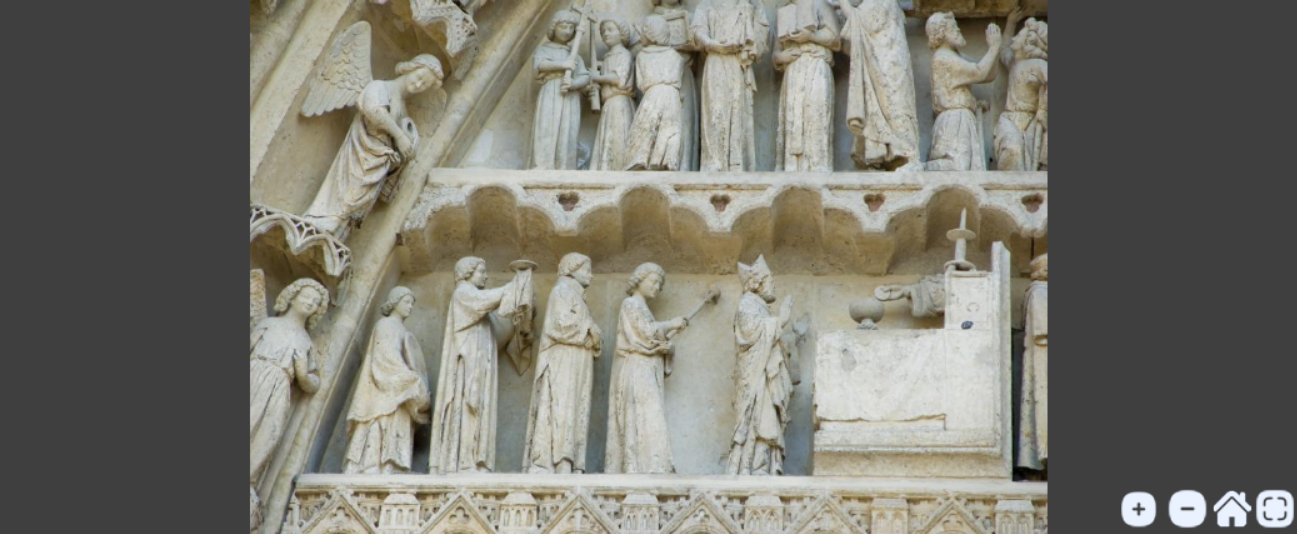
#include "include/core/SkBlurTypes.h"
#include "include/core/SkCanvas.h"
#include "include/core/SkData.h"
#include "include/core/SkFont.h"
#include "include/core/SkFontMgr.h"
#include "include/core/SkImage.h"
#include "include/core/SkMaskFilter.h"
#include "include/core/SkPaint.h"
#include "include/core/SkPathBuilder.h"
#include "include/core/SkTextBlob.h"
#include "include/effects/SkDashPathEffect.h"
#include "include/effects/SkGradientShader.h"
#include "include/utils/SkParsePath.h"

extern sk_sp<SkFontMgr> fontMgr;

static void drawPhoto(SkCanvas* canvas, const char* path, float x, float y, float w, float h) {
    auto image = SkImages::DeferredFromEncodedData(SkData::MakeFromFileName(path));
    canvas->drawImageRect(image, SkRect::MakeXYWH(x, y, w, h), SkSamplingOptions());
}

void draw(SkCanvas* canvas) {
    SkPaint paint;
    paint.setAntiAlias(true);
    canvas->clear(0xFF3F3F3F);
    drawPhoto(canvas, "assets/img1.png", 249, 0, 799, 534);
    drawPhoto(canvas, "assets/img2.png", 1121, 491, 36, 37);
    drawPhoto(canvas, "assets/img3.png", 1121, 491, 36, 37);
    drawPhoto(canvas, "assets/img4.png", 1167, 489, 41, 40);
    drawPhoto(canvas, "assets/img5.png", 1168, 489, 39, 39);
    drawPhoto(canvas, "assets/img6.png", 1213, 490, 39, 38);
    drawPhoto(canvas, "assets/img7.png", 1213, 490, 39, 38);
    drawPhoto(canvas, "assets/img8.png", 1255, 489, 40, 40);
    drawPhoto(canvas, "assets/img9.png", 1256, 489, 38, 39);
}
